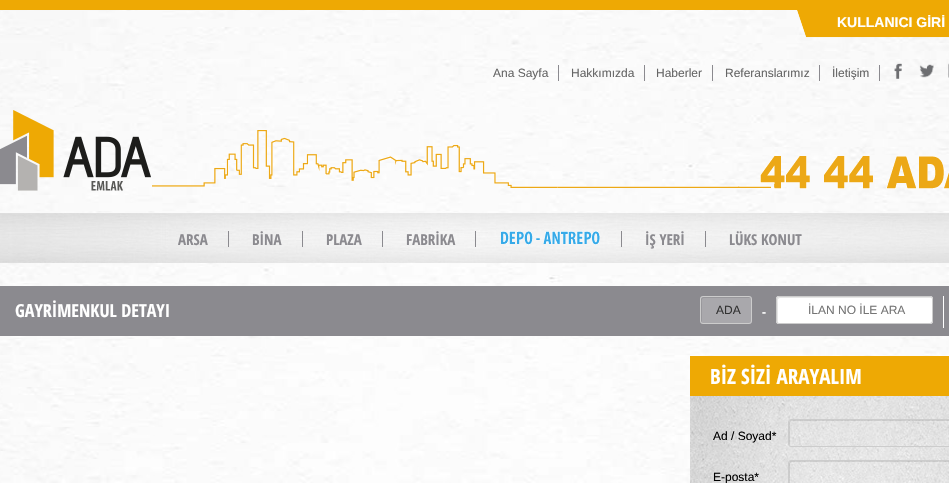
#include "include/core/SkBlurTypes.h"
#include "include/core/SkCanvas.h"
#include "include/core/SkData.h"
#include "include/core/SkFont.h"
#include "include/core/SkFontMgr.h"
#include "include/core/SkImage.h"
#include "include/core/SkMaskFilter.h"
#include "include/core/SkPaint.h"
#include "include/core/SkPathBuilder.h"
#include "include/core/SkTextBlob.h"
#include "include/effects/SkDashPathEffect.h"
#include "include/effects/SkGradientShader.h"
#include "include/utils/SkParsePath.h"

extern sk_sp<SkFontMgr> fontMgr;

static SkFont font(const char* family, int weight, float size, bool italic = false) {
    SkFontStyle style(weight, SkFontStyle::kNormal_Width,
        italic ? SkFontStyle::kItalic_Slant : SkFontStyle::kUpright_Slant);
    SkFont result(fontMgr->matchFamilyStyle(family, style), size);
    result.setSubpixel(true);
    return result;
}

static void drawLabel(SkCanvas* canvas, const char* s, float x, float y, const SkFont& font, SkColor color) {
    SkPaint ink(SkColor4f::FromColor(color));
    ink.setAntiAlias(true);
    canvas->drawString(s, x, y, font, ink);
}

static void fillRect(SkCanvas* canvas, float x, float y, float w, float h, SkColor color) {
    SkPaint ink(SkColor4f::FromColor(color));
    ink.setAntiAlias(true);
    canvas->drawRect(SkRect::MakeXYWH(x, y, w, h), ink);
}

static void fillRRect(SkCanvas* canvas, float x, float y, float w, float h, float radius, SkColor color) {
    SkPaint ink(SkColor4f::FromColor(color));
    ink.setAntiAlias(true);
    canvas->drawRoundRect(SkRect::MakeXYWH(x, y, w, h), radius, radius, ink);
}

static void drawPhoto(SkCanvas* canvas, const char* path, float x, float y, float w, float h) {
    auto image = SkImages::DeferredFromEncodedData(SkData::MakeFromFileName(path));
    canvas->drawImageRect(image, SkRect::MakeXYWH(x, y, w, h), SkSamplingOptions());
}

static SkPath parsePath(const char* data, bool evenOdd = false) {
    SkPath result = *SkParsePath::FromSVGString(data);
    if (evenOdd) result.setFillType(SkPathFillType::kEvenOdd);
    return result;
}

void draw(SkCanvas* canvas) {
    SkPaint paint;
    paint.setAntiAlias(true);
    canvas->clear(0xFFFFFFFF);
    drawPhoto(canvas, "assets/img1.png", 0, 10, 949, 473);
    fillRect(canvas, 0, 0, 949, 10, 0xFFEEA904);
    drawPhoto(canvas, "assets/img2.png", 797, 10, 152, 28);
    SkFont font1 = font("Liberation Sans", 700, 14);
    drawLabel(canvas, "KULLANICI GİRİ", 837, 27, font1, 0xFFFFFFFF);
    fillRect(canvas, 558, 65, 1, 16, 0xFF8B8A8F);
    SkFont font2 = font("Liberation Sans", 400, 12);
    drawLabel(canvas, "Ana Sayfa", 493, 77, font2, 0xFF666666);
    fillRect(canvas, 644, 65, 1, 16, 0xFF8B8A8F);
    drawLabel(canvas, "Hakkımızda", 571, 77, font2, 0xFF666666);
    fillRect(canvas, 712, 65, 1, 16, 0xFF8B8A8F);
    drawLabel(canvas, "Haberler", 656, 77, font2, 0xFF666666);
    fillRect(canvas, 819, 65, 1, 16, 0xFF8B8A8F);
    drawLabel(canvas, "Referanslarımız", 725, 77, font2, 0xFF666666);
    fillRect(canvas, 879, 65, 1, 16, 0xFF8B8A8F);
    drawLabel(canvas, "İletişim", 832, 77, font2, 0xFF666666);
    drawPhoto(canvas, "assets/img3.png", 894, 63, 8, 16);
    drawPhoto(canvas, "assets/img4.png", 919, 64, 15, 14);
    drawPhoto(canvas, "assets/img5.png", 948, 63, 1, 15);
    drawPhoto(canvas, "assets/img6.png", 0, 110, 151, 81);
    drawPhoto(canvas, "assets/img7.png", 152, 130, 797, 59);
    drawPhoto(canvas, "assets/img8.png", 0, 213, 949, 50);
    fillRect(canvas, 228, 231, 1, 16, 0xFF8B8A8F);
    SkFont font3 = font("Open Sans Condensed", 700, 15);
    drawLabel(canvas, "ARSA", 178, 245, font3, 0xFF8B8A8F);
    fillRect(canvas, 302, 231, 1, 16, 0xFF8B8A8F);
    drawLabel(canvas, "BİNA", 252, 245, font3, 0xFF8B8A8F);
    fillRect(canvas, 382, 231, 1, 16, 0xFF8B8A8F);
    drawLabel(canvas, "PLAZA", 326, 245, font3, 0xFF8B8A8F);
    fillRect(canvas, 475, 231, 1, 16, 0xFF8B8A8F);
    drawLabel(canvas, "FABRİKA", 406, 245, font3, 0xFF8B8A8F);
    fillRect(canvas, 621, 231, 1, 16, 0xFF8B8A8F);
    drawPhoto(canvas, "assets/img9.png", 501, 231, 99, 14);
    fillRect(canvas, 705, 231, 1, 16, 0xFF8B8A8F);
    drawLabel(canvas, "İŞ YERİ", 645, 245, font3, 0xFF8B8A8F);
    drawLabel(canvas, "LÜKS KONUT", 729, 245, font3, 0xFF8B8A8F);
    fillRect(canvas, 0, 286, 949, 50, 0xFF8B8A8F);
    SkFont font4 = font("Open Sans Condensed", 700, 18);
    drawLabel(canvas, "GAYRİMENKUL DETAYI", 15, 317, font4, 0xFFFFFFFF);
    fillRect(canvas, 943, 296, 1, 32, 0xFFFFFFFF);
    fillRRect(canvas, 700, 296, 52, 28, 3, 0xFFA9A8AC);
    paint.setColor(0xFF98979B);
    canvas->drawPath(parsePath("M704 298H751L749 297H718C697 297 701 293 701 314C701 315 700 322 702 323V304C702 302 701 298 704 298Z"), paint);
    paint.setStroke(true);
    paint.setStrokeWidth(1);
    paint.setColor(0xFFCCCCCC);
    canvas->drawRoundRect(SkRect::MakeXYWH(700.5f, 296.5f, 51, 27), 2.5f, 2.5f, paint);
    drawLabel(canvas, "ADA", 716, 314, font2, 0xFF333333);
    SkFont font5 = font("Liberation Sans", 700, 12);
    drawLabel(canvas, "-", 762, 316, font5, 0xFFFFFFFF);
    fillRRect(canvas, 776, 296, 157, 28, 3, 0xFFFFFFFF);
    paint.setStroke(false);
    paint.setColor(0xFFE6E6E6);
    canvas->drawPath(parsePath("M780 298H932C932 298 931 297 930 297H779C778 297 777 298 777 299V321C777 322 778 323 778 323V304C778 302 777 298 780 298Z"), paint);
    paint.setStroke(true);
    paint.setColor(0xFFCCCCCC);
    canvas->drawRoundRect(SkRect::MakeXYWH(776.5f, 296.5f, 156, 27), 2.5f, 2.5f, paint);
    drawLabel(canvas, "İLAN NO İLE ARA", 808, 314, font2, 0xFF757575);
    drawPhoto(canvas, "assets/img10.png", 690, 396, 259, 87);
    fillRect(canvas, 690, 356, 259, 40, 0xFFEEA904);
    SkFont font6 = font("Open Sans Condensed", 700, 21);
    drawLabel(canvas, "BİZ SİZİ ARAYALIM", 710, 384, font6, 0xFFFFFFFF);
    drawLabel(canvas, "Ad / Soyad*", 713, 440, font2, 0xFF000000);
    paint.setStroke(false);
    paint.setColor(0x1A000000);
    canvas->drawPath(parsePath("M792 421H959L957 420H790L789 422C789 425 788 445 790 446V427C790 425 789 421 792 421Z"), paint);
    paint.setStroke(true);
    paint.setColor(0xFFCCCCCC);
    canvas->drawRoundRect(SkRect::MakeXYWH(788.5f, 419.5f, 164, 27), 2.5f, 2.5f, paint);
    drawLabel(canvas, "E-posta*", 713, 481, font2, 0xFF000000);
    paint.setStroke(false);
    paint.setColor(0x1A000000);
    canvas->drawPath(parsePath("M792 462H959L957 461H790L789 463C789 466 788 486 790 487V468C790 466 789 462 792 462Z"), paint);
    paint.setStroke(true);
    paint.setColor(0xFFCCCCCC);
    canvas->drawRoundRect(SkRect::MakeXYWH(788.5f, 460.5f, 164, 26), 2.5f, 2.5f, paint);
}
